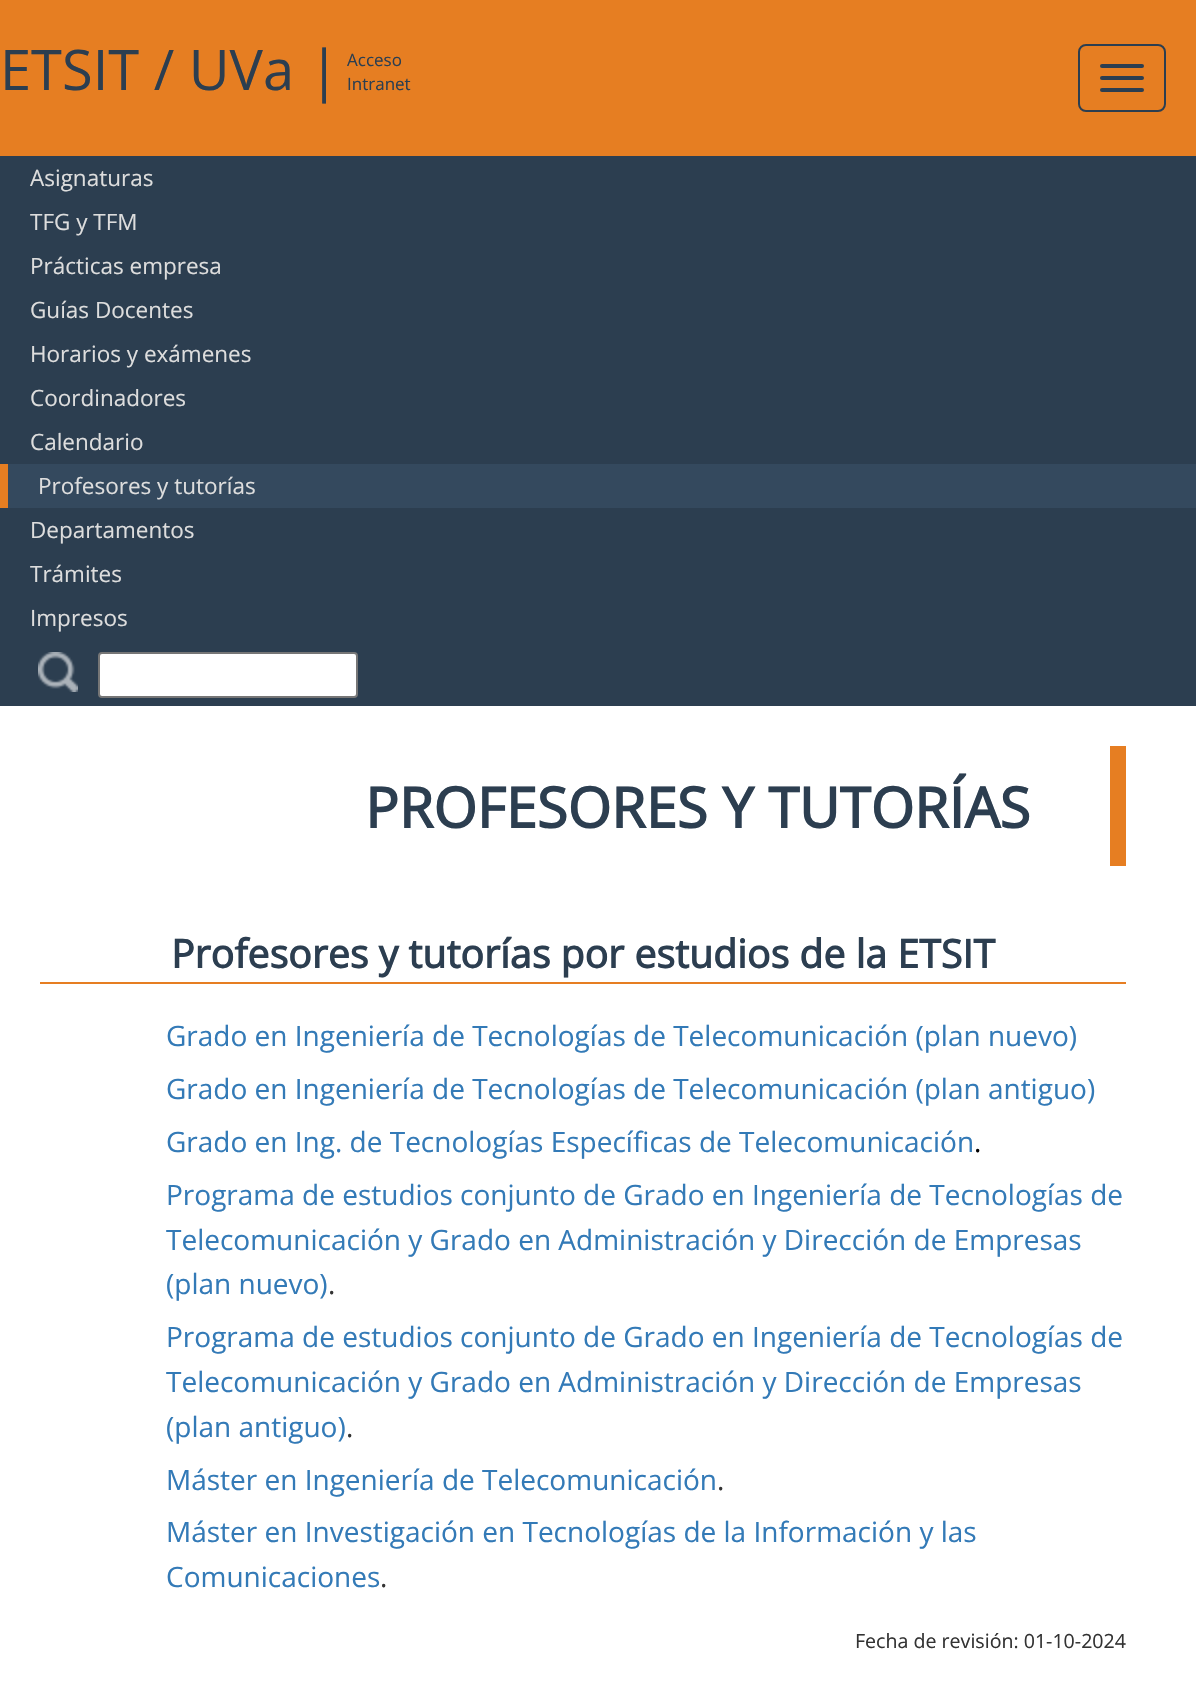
#include "include/core/SkBlurTypes.h"
#include "include/core/SkCanvas.h"
#include "include/core/SkData.h"
#include "include/core/SkFont.h"
#include "include/core/SkFontMgr.h"
#include "include/core/SkImage.h"
#include "include/core/SkMaskFilter.h"
#include "include/core/SkPaint.h"
#include "include/core/SkPathBuilder.h"
#include "include/core/SkTextBlob.h"
#include "include/effects/SkDashPathEffect.h"
#include "include/effects/SkGradientShader.h"
#include "include/utils/SkParsePath.h"

extern sk_sp<SkFontMgr> fontMgr;

static SkFont font(const char* family, int weight, float size, bool italic = false) {
    SkFontStyle style(weight, SkFontStyle::kNormal_Width,
        italic ? SkFontStyle::kItalic_Slant : SkFontStyle::kUpright_Slant);
    SkFont result(fontMgr->matchFamilyStyle(family, style), size);
    result.setSubpixel(true);
    return result;
}

static void drawLabel(SkCanvas* canvas, const char* s, float x, float y, const SkFont& font, SkColor color) {
    SkPaint ink(SkColor4f::FromColor(color));
    ink.setAntiAlias(true);
    canvas->drawString(s, x, y, font, ink);
}

static void fillRect(SkCanvas* canvas, float x, float y, float w, float h, SkColor color) {
    SkPaint ink(SkColor4f::FromColor(color));
    ink.setAntiAlias(true);
    canvas->drawRect(SkRect::MakeXYWH(x, y, w, h), ink);
}

static void fillRRect(SkCanvas* canvas, float x, float y, float w, float h, float radius, SkColor color) {
    SkPaint ink(SkColor4f::FromColor(color));
    ink.setAntiAlias(true);
    canvas->drawRoundRect(SkRect::MakeXYWH(x, y, w, h), radius, radius, ink);
}

static void drawPhoto(SkCanvas* canvas, const char* path, float x, float y, float w, float h) {
    auto image = SkImages::DeferredFromEncodedData(SkData::MakeFromFileName(path));
    canvas->drawImageRect(image, SkRect::MakeXYWH(x, y, w, h), SkSamplingOptions());
}

void draw(SkCanvas* canvas) {
    SkPaint paint;
    paint.setAntiAlias(true);
    canvas->clear(0xFFFFFFFF);
    fillRect(canvas, 0, 0, 1196, 156, 0xFFE67E22);
    SkFont font1 = font("Open Sans", 400, 56);
    drawLabel(canvas, "ETSIT / UVa |", 0, 90, font1, 0xFF2C3E50);
    SkFont font2 = font("Open Sans", 400, 17);
    drawLabel(canvas, "Acceso", 347, 66, font2, 0xFF2C3E50);
    drawLabel(canvas, "Intranet", 347, 90, font2, 0xFF2C3E50);
    paint.setStroke(true);
    paint.setStrokeWidth(2);
    paint.setColor(0xFF2C3E50);
    canvas->drawRoundRect(SkRect::MakeXYWH(1079, 45, 86, 66), 7, 7, paint);
    fillRRect(canvas, 1100, 64, 44, 4, 2, 0xFF2C3E50);
    fillRRect(canvas, 1100, 76, 44, 4, 2, 0xFF2C3E50);
    fillRRect(canvas, 1100, 88, 44, 4, 2, 0xFF2C3E50);
    fillRect(canvas, 0, 156, 1196, 550, 0xFF2C3E50);
    SkFont font3 = font("Open Sans", 400, 22.5f);
    drawLabel(canvas, "Asignaturas", 30, 186, font3, 0xFFDDDDDD);
    drawLabel(canvas, "TFG y TFM", 30, 230, font3, 0xFFDDDDDD);
    drawLabel(canvas, "Prácticas empresa", 30, 274, font3, 0xFFDDDDDD);
    drawLabel(canvas, "Guías Docentes", 30, 318, font3, 0xFFDDDDDD);
    drawLabel(canvas, "Horarios y exámenes", 30, 362, font3, 0xFFDDDDDD);
    drawLabel(canvas, "Coordinadores", 30, 406, font3, 0xFFDDDDDD);
    drawLabel(canvas, "Calendario", 30, 450, font3, 0xFFDDDDDD);
    fillRect(canvas, 8, 464, 1188, 44, 0xFF34495E);
    fillRect(canvas, 0, 464, 8, 44, 0xFFE67E22);
    drawLabel(canvas, "Profesores y tutorías", 38, 494, font3, 0xFFDDDDDD);
    drawLabel(canvas, "Departamentos", 30, 538, font3, 0xFFDDDDDD);
    drawLabel(canvas, "Trámites", 30, 582, font3, 0xFFDDDDDD);
    drawLabel(canvas, "Impresos", 30, 626, font3, 0xFFDDDDDD);
    drawPhoto(canvas, "assets/img1.png", 38, 652, 40, 40);
    paint.setStroke(false);
    paint.setColor(0xFFFFFFFF);
    canvas->drawRoundRect(SkRect::MakeXYWH(99, 653, 258, 44), 3, 3, paint);
    paint.setStroke(true);
    paint.setColor(0xFF767676);
    canvas->drawRoundRect(SkRect::MakeXYWH(99, 653, 258, 44), 3, 3, paint);
    fillRect(canvas, 1110, 746, 16, 120, 0xFFE67E22);
    SkFont font4 = font("Open Sans", 700, 56);
    drawLabel(canvas, "PROFESORES Y TUTORÍAS", 365, 828, font4, 0xFF2C3E50);
    fillRect(canvas, 40, 982, 1086, 2, 0xFFE67E22);
    SkFont font5 = font("Open Sans", 700, 39.2f);
    drawLabel(canvas, "Profesores y tutorías por estudios de la ETSIT", 171, 968, font5, 0xFF2C3E50);
    SkFont font6 = font("Open Sans", 400, 28);
    drawLabel(canvas, "Grado en Ingeniería de Tecnologías de Telecomunicación (plan nuevo)", 166, 1046, font6, 0xFF337AB7);
    drawLabel(canvas, "Grado en Ingeniería de Tecnologías de Telecomunicación (plan antiguo)", 166, 1099, font6, 0xFF337AB7);
    drawLabel(canvas, "Grado en Ing. de Tecnologías Específicas de Telecomunicación", 166, 1152, font6, 0xFF337AB7);
    drawLabel(canvas, ".", 974, 1152, font6, 0xFF000000);
    drawLabel(canvas, "Programa de estudios conjunto de Grado en Ingeniería de Tecnologías de", 166, 1205, font6, 0xFF337AB7);
    drawLabel(canvas, "Telecomunicación y Grado en Administración y Dirección de Empresas", 166, 1250, font6, 0xFF337AB7);
    drawLabel(canvas, "(plan nuevo)", 166, 1294, font6, 0xFF337AB7);
    drawLabel(canvas, ".", 328, 1294, font6, 0xFF333333);
    drawLabel(canvas, "Programa de estudios conjunto de Grado en Ingeniería de Tecnologías de", 166, 1347, font6, 0xFF337AB7);
    drawLabel(canvas, "Telecomunicación y Grado en Administración y Dirección de Empresas", 166, 1392, font6, 0xFF337AB7);
    drawLabel(canvas, "(plan antiguo)", 166, 1437, font6, 0xFF337AB7);
    drawLabel(canvas, ".", 346, 1437, font6, 0xFF333333);
    drawLabel(canvas, "Máster en Ingeniería de Telecomunicación", 166, 1490, font6, 0xFF337AB7);
    drawLabel(canvas, ".", 717, 1490, font6, 0xFF333333);
    drawLabel(canvas, "Máster en Investigación en Tecnologías de la Información y las", 166, 1542, font6, 0xFF337AB7);
    drawLabel(canvas, "Comunicaciones", 166, 1587, font6, 0xFF337AB7);
    drawLabel(canvas, ".", 380, 1587, font6, 0xFF333333);
    SkFont font7 = font("Open Sans", 400, 19.6f);
    drawLabel(canvas, "Fecha de revisión: 01-10-2024", 855, 1648, font7, 0xFF333333);
}
